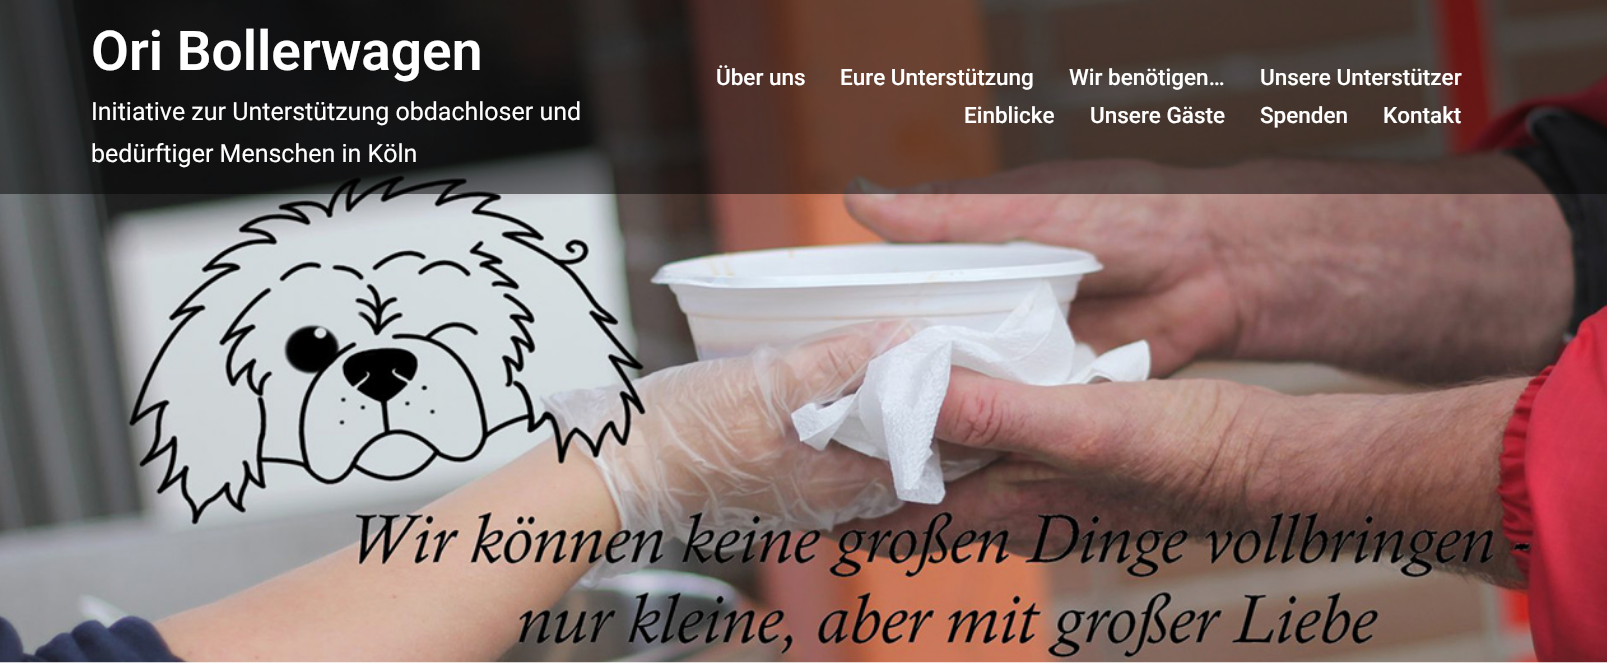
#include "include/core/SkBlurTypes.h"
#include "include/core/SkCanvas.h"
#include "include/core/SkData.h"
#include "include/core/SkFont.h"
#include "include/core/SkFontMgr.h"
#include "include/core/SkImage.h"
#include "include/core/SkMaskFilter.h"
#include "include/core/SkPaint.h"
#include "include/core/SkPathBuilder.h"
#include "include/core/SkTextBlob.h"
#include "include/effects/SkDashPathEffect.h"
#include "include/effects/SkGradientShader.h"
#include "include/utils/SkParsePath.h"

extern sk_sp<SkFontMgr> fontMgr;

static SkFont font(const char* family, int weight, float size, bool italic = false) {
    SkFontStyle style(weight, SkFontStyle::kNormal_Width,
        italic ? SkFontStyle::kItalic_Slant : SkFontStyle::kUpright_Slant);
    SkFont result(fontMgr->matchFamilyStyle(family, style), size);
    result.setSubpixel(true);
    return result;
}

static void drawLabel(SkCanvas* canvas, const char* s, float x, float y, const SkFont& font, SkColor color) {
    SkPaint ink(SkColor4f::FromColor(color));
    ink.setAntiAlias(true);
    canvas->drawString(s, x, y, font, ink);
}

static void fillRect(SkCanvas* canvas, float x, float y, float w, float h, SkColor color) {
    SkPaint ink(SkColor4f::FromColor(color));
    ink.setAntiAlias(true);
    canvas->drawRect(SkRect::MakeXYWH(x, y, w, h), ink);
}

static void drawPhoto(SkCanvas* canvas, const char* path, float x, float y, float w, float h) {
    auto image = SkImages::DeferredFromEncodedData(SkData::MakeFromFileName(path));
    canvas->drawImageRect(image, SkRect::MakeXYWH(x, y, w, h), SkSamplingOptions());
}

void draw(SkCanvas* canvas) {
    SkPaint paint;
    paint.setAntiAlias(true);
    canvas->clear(0xFFFFFFFF);
    drawPhoto(canvas, "assets/img1.png", 0, 0, 1607, 663);
    fillRect(canvas, 0, 0, 1607, 194, 0x80010101);
    SkFont font1 = font("Roboto", 600, 55);
    drawLabel(canvas, "Ori Bollerwagen", 91, 70, font1, 0xFFFFFFFF);
    SkFont font2 = font("Roboto", 400, 25);
    drawLabel(canvas, "Initiative zur Unterstützung obdachloser und", 91, 120, font2, 0xFFFFFFFF);
    drawLabel(canvas, "bedürftiger Menschen in Köln", 91, 162, font2, 0xFFFFFFFF);
    SkFont font3 = font("Roboto", 500, 22.5f);
    drawLabel(canvas, "Über uns", 716, 85, font3, 0xFFFFFFFF);
    drawLabel(canvas, "Eure Unterstützung", 840, 85, font3, 0xFFFFFFFF);
    drawLabel(canvas, "Wir benötigen…", 1069, 85, font3, 0xFFFFFFFF);
    drawLabel(canvas, "Unsere Unterstützer", 1260, 85, font3, 0xFFFFFFFF);
    drawLabel(canvas, "Einblicke", 964, 123, font3, 0xFFFFFFFF);
    drawLabel(canvas, "Unsere Gäste", 1090, 123, font3, 0xFFFFFFFF);
    drawLabel(canvas, "Spenden", 1260, 123, font3, 0xFFFFFFFF);
    drawLabel(canvas, "Kontakt", 1383, 123, font3, 0xFFFFFFFF);
}
